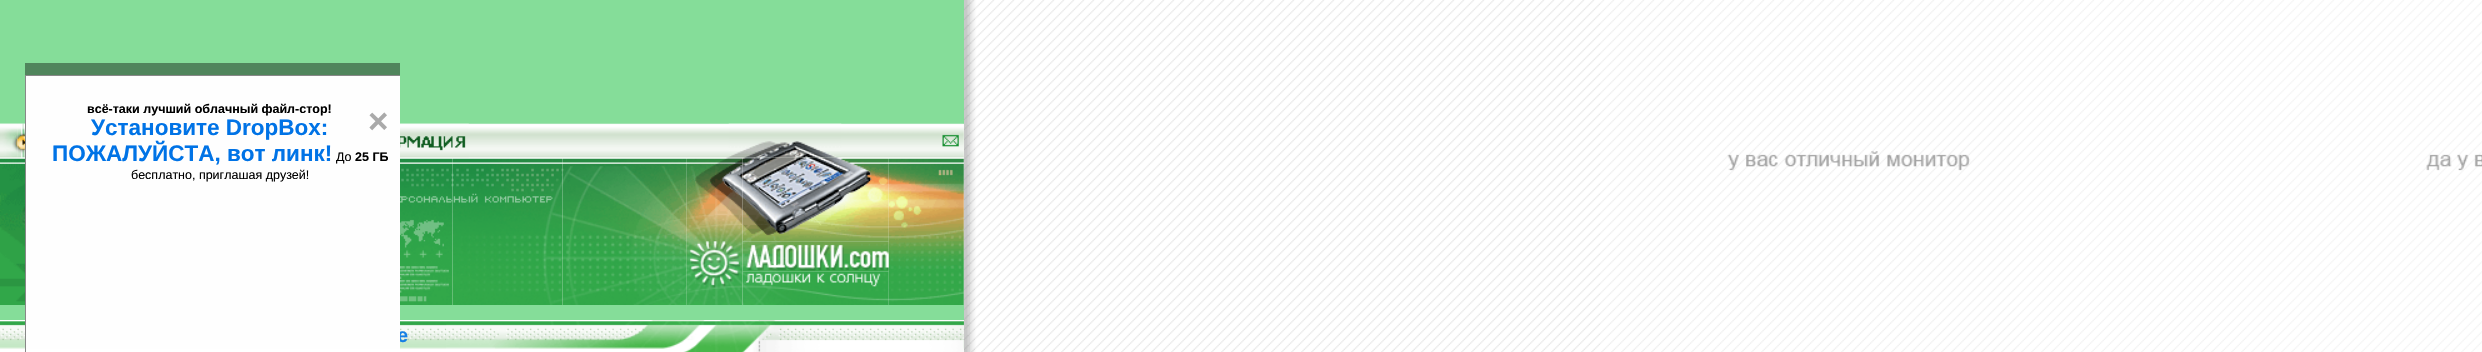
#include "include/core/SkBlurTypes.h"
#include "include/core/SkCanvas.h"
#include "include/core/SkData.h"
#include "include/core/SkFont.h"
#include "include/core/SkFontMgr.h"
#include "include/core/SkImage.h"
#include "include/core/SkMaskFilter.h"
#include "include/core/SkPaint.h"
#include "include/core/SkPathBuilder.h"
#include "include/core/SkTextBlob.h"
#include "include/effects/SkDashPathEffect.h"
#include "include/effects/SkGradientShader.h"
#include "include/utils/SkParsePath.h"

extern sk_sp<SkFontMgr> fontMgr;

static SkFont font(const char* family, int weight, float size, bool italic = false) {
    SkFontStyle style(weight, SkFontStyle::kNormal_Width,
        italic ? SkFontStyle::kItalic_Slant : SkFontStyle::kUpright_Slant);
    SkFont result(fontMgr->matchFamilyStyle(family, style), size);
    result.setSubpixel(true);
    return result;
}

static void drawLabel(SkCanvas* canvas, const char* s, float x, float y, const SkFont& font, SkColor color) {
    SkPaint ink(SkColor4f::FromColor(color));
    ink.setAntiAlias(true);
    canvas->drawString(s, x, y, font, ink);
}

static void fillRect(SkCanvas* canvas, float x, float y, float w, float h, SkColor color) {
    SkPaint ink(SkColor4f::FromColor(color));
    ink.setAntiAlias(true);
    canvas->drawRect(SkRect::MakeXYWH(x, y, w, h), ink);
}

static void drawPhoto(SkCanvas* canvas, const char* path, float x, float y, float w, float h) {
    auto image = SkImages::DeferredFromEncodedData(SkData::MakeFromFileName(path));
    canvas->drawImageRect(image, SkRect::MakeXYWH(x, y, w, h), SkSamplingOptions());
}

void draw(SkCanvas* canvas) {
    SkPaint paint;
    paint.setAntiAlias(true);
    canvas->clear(0xFFFFFFFF);
    drawPhoto(canvas, "assets/img1.png", 963, 0, 1519, 352);
    fillRect(canvas, 0, 0, 964, 124, 0xFF85DD99);
    fillRect(canvas, 25, 63, 375, 12, 0x66000000);
    fillRect(canvas, 0, 124, 964, 34, 0xFFF0F5EF);
    drawPhoto(canvas, "assets/img2.png", 0, 123, 964, 35);
    fillRect(canvas, 0, 305, 964, 15, 0xFF85DD99);
    drawPhoto(canvas, "assets/img17.png", 0, 320, 964, 32);
    SkFont font1 = font("Liberation Sans", 700, 20);
    drawLabel(canvas, "е", 397, 342, font1, 0xFF167FE5);
    fillRect(canvas, 26, 76, 374, 273, 0xFFFEFEFE);
    drawPhoto(canvas, "assets/img5.png", 400, 123, 69, 35);
    drawPhoto(canvas, "assets/img9.png", 400, 157, 53, 148);
    canvas->save();
    canvas->clipRect(SkRect::MakeXYWH(25, 63, 375, 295));
    paint.setStroke(true);
    paint.setStrokeWidth(1);
    paint.setColor(0xFF888888);
    canvas->drawRect(SkRect::MakeXYWH(25.5f, 75.5f, 389, 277), paint);
    canvas->restore();
    SkFont font2 = font("Liberation Sans", 700, 12.5f);
    drawLabel(canvas, "всё-таки лучший облачный файл-стор!", 87, 113, font2, 0xFF000000);
    SkFont font3 = font("Liberation Sans", 700, 22.5f);
    drawLabel(canvas, "Установите DropBox:", 91, 135, font3, 0xFF0073E6);
    drawLabel(canvas, "ПОЖАЛУЙСТА, вот линк!", 52, 161, font3, 0xFF0073E6);
    SkFont font4 = font("Liberation Sans", 400, 12.5f);
    drawLabel(canvas, "До", 336, 161, font4, 0xFF000000);
    drawLabel(canvas, "25 ГБ", 355, 161, font2, 0xFF000000);
    drawLabel(canvas, "бесплатно, приглашая друзей!", 131, 179, font4, 0xFF000000);
    SkFont font5 = font("Liberation Sans", 700, 35);
    drawLabel(canvas, "×", 368, 133, font5, 0xFFAAAAAA);
    drawPhoto(canvas, "assets/img3.png", 0, 123, 18, 35);
    drawPhoto(canvas, "assets/img4.png", 17, 123, 8, 35);
    drawPhoto(canvas, "assets/img6.png", 728, 123, 114, 35);
    drawPhoto(canvas, "assets/img7.png", 942, 134, 17, 13);
    drawPhoto(canvas, "assets/img8.png", 0, 157, 25, 148);
    drawPhoto(canvas, "assets/img10.png", 452, 157, 111, 148);
    drawPhoto(canvas, "assets/img11.png", 562, 157, 125, 148);
    drawPhoto(canvas, "assets/img12.png", 686, 157, 57, 148);
    drawPhoto(canvas, "assets/img13.png", 742, 157, 147, 85);
    drawPhoto(canvas, "assets/img14.png", 742, 241, 147, 31);
    drawPhoto(canvas, "assets/img15.png", 742, 271, 147, 34);
    drawPhoto(canvas, "assets/img16.png", 888, 157, 76, 148);
    drawPhoto(canvas, "assets/img18.png", 446, 320, 518, 32);
}
